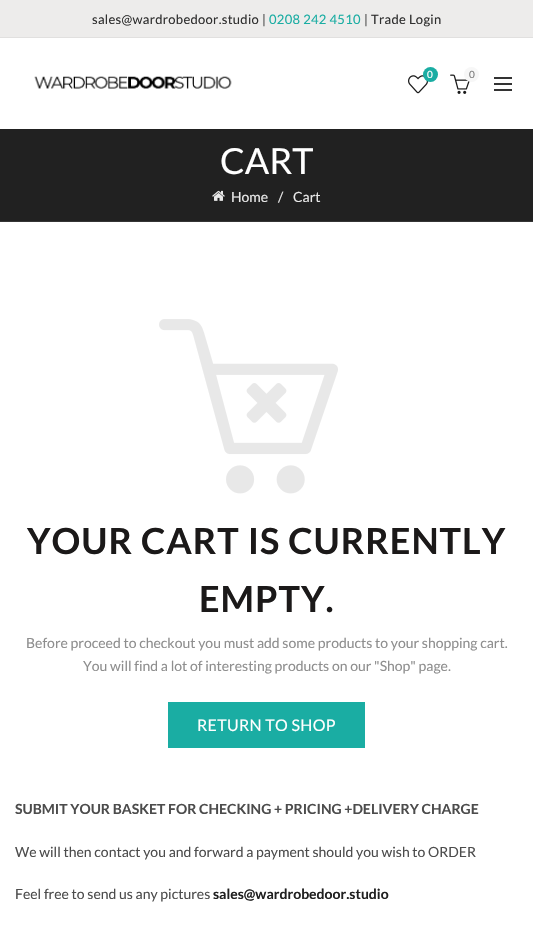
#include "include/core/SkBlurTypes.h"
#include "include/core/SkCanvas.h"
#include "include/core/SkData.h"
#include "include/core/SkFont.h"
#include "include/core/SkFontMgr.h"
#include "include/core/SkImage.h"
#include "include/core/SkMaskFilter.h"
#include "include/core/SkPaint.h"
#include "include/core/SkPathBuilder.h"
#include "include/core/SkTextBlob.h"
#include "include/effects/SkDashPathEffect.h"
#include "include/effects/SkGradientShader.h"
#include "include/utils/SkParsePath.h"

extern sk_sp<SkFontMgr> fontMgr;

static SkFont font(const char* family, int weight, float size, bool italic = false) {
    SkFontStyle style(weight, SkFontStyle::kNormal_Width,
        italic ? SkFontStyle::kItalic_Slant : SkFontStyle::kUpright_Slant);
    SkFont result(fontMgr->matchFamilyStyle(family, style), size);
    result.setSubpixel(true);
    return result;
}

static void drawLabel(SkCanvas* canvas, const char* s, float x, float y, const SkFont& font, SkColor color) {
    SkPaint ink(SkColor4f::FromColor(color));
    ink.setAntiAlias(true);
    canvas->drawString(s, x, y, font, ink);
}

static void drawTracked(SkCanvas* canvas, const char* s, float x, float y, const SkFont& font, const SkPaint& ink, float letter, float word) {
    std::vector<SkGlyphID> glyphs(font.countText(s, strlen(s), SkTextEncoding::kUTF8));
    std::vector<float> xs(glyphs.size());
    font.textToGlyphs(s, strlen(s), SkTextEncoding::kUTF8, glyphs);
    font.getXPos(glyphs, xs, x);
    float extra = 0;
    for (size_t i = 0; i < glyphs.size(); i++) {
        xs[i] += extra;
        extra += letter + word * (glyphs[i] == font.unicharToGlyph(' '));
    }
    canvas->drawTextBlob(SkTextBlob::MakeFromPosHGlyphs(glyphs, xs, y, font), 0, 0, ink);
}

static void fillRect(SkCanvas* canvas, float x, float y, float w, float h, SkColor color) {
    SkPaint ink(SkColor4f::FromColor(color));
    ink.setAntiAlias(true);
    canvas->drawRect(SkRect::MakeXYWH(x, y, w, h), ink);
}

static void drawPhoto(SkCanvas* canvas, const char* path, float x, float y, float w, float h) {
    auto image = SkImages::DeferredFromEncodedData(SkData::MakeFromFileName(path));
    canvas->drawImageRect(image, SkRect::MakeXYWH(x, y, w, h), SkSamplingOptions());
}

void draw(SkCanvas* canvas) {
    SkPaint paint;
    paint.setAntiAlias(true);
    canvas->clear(0xFFFFFFFF);
    fillRect(canvas, 0, 0, 533, 37, 0xFFEDECEB);
    fillRect(canvas, 0, 37, 533, 1, 0xFFE1E0DF);
    SkFont font1 = font("Lato", 400, 13);
    paint.setColor(0xFF2F2F2F);
    drawTracked(canvas, "sales@wardrobedoor.studio", 92, 24, font1, paint, 0.3f, 0);
    paint.setColor(0xFF4C4C4C);
    drawTracked(canvas, "|", 262, 24, font1, paint, 0.3f, 0);
    paint.setColor(0xFF1AADA3);
    drawTracked(canvas, "0208 242 4510", 269, 24, font1, paint, 0.3f, 0);
    paint.setColor(0xFF4C4C4C);
    drawTracked(canvas, "|", 364, 24, font1, paint, 0.3f, 0);
    paint.setColor(0xFF2F2F2F);
    drawTracked(canvas, "Trade Login", 371, 24, font1, paint, 0.3f, 0);
    drawPhoto(canvas, "assets/img1.png", 408, 75, 20, 19);
    paint.setColor(0xFF1AADA3);
    canvas->drawCircle(430.5f, 74.5f, 7.5f, paint);
    SkFont font2 = font("Lato", 400, 10);
    drawLabel(canvas, "0", 427, 78, font2, 0xFFFFFFFF);
    drawPhoto(canvas, "assets/img2.png", 450, 74, 20, 20);
    paint.setColor(0xFFF7F7F7);
    canvas->drawCircle(471.5f, 74.5f, 7.5f, paint);
    drawLabel(canvas, "0", 469, 78, font2, 0xFF7E7E7E);
    fillRect(canvas, 494, 83, 18, 2, 0xFF333333);
    fillRect(canvas, 494, 77, 18, 2, 0xFF333333);
    fillRect(canvas, 494, 89, 18, 2, 0xFF333333);
    drawPhoto(canvas, "assets/img3.png", 34, 76, 198, 13);
    fillRect(canvas, 0, 129, 533, 92, 0xFF212121);
    fillRect(canvas, 0, 221, 533, 1, 0xFF353535);
    SkFont font3 = font("Lato", 400, 36);
    drawLabel(canvas, "CART", 220, 174, font3, 0xFFFFFFFF);
    drawPhoto(canvas, "assets/img4.png", 212, 190, 13, 11);
    SkFont font4 = font("Lato", 400, 14);
    drawLabel(canvas, "Home", 231, 202, font4, 0xFFE9E9E9);
    drawLabel(canvas, "/", 278, 202, font4, 0xFFE9E9E9);
    drawLabel(canvas, "Cart", 293, 202, font4, 0xFFE9E9E9);
    drawPhoto(canvas, "assets/img5.png", 159, 319, 179, 175);
    drawPhoto(canvas, "assets/img6.png", 246, 383, 41, 40);
    SkFont font5 = font("Lato", 700, 36);
    paint.setColor(0xFF1B1919);
    drawTracked(canvas, "YOUR CART IS CURRENTLY", 27, 554, font5, paint, 1, 0);
    drawTracked(canvas, "EMPTY.", 199, 612, font5, paint, 1, 0);
    drawLabel(canvas, "Before proceed to checkout you must add some products to your shopping cart.", 26, 648, font4, 0xFF8E8E8E);
    drawLabel(canvas, "You will find a lot of interesting products on our \"Shop\" page.", 83, 671, font4, 0xFF8E8E8E);
    fillRect(canvas, 168, 702, 197, 46, 0xFF1AADA3);
    SkFont font6 = font("Lato", 400, 16);
    paint.setColor(0xFFFFFFFF);
    drawTracked(canvas, "RETURN TO SHOP", 197, 731, font6, paint, 0.3f, 0);
    SkFont font7 = font("Lato", 700, 14);
    drawLabel(canvas, "SUBMIT YOUR BASKET FOR CHECKING + PRICING +DELIVERY CHARGE", 15, 814, font7, 0xFF4C4C4C);
    drawLabel(canvas, "We will then contact you and forward a payment should you wish to ORDER", 15, 857, font4, 0xFF4C4C4C);
    drawLabel(canvas, "Feel free to send us any pictures", 15, 899, font4, 0xFF4C4C4C);
    drawLabel(canvas, "sales@wardrobedoor.studio", 213, 899, font7, 0xFF202020);
}
